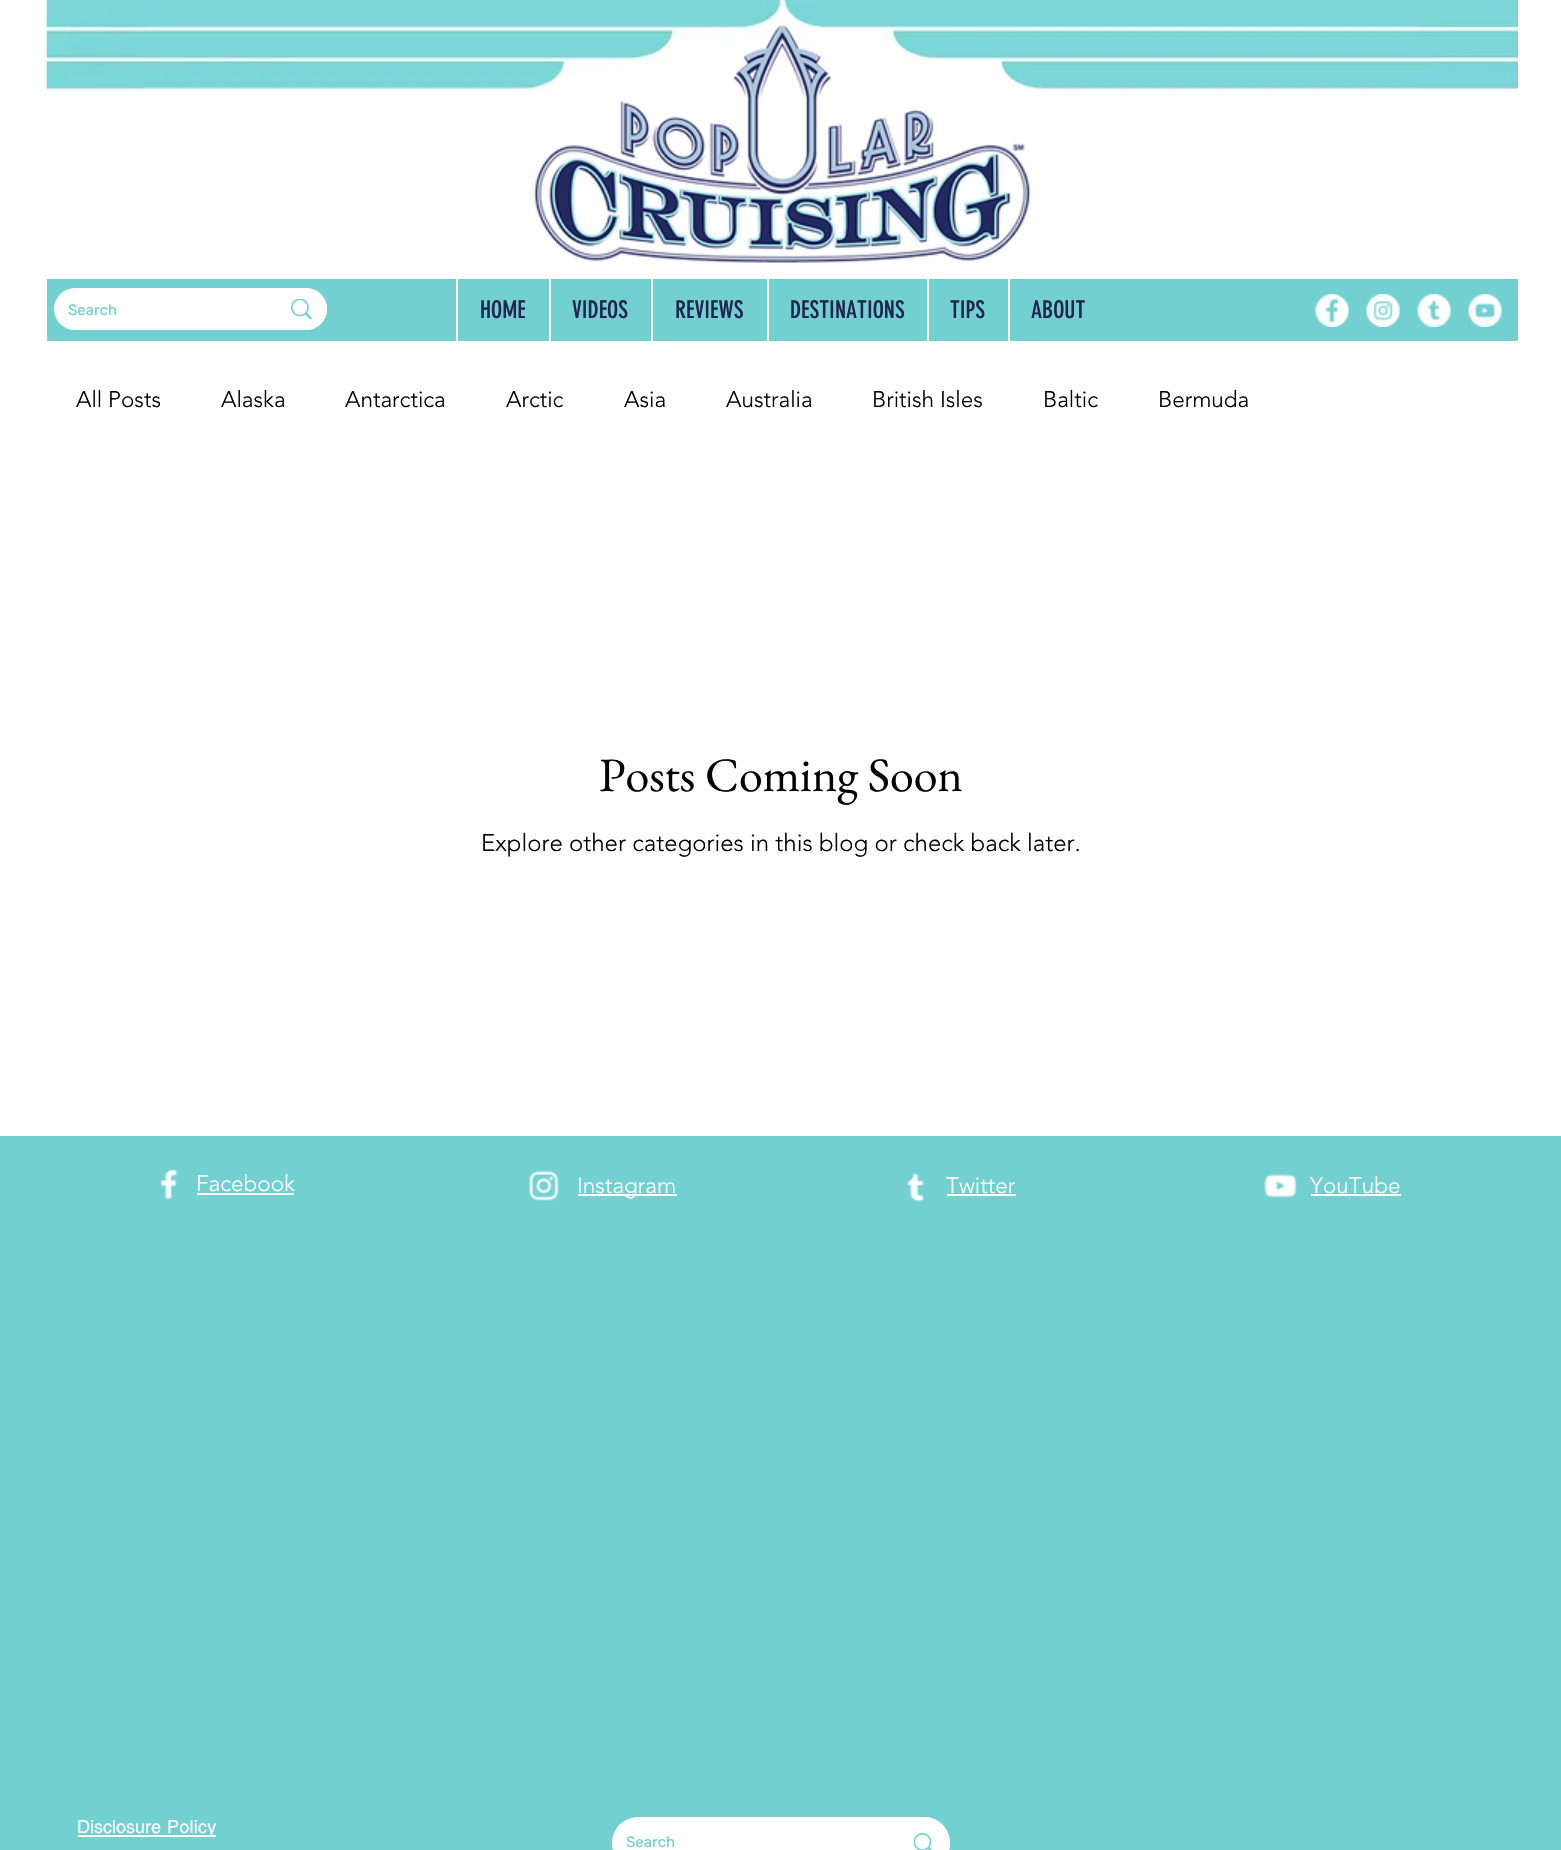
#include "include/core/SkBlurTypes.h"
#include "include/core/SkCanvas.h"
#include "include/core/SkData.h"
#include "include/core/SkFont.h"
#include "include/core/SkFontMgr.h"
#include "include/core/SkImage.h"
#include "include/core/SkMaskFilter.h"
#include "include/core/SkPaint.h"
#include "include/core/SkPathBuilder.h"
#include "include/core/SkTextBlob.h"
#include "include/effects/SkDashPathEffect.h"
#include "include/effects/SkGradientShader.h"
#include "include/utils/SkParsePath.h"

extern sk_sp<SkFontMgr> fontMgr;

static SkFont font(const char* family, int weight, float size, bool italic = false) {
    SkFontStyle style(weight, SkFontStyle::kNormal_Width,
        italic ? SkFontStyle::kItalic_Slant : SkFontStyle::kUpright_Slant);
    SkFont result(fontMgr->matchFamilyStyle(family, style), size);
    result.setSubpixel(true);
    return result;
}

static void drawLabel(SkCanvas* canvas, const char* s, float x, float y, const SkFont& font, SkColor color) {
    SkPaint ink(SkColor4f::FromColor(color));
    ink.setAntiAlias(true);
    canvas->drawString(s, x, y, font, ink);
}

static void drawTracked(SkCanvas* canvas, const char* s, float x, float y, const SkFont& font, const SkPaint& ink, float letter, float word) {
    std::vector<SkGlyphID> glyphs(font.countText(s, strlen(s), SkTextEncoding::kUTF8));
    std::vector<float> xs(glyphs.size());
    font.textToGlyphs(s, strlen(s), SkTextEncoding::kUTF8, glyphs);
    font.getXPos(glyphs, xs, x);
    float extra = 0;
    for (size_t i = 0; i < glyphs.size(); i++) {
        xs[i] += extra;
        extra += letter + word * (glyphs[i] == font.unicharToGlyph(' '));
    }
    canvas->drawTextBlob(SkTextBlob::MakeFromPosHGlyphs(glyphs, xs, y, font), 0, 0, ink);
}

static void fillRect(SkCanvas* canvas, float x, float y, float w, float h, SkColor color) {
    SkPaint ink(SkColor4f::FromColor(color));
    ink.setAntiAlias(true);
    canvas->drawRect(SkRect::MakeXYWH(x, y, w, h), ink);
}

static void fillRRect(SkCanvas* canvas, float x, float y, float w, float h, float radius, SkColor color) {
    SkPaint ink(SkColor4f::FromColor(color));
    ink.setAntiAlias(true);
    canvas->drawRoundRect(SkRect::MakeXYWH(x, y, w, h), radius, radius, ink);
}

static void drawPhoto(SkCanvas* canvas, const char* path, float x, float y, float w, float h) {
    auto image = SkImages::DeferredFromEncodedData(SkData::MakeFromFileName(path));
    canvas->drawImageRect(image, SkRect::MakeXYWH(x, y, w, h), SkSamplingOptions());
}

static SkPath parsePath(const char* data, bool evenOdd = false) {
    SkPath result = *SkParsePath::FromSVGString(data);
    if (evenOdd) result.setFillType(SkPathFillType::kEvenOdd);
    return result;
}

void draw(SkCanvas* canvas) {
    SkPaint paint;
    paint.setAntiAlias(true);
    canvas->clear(0xFFFFFFFF);
    drawPhoto(canvas, "assets/img1.png", 46, 0, 1472, 91);
    drawPhoto(canvas, "assets/img2.png", 534, 25, 497, 238);
    fillRect(canvas, 47, 279, 1471, 62, 0xFF73D0D1);
    fillRRect(canvas, 54, 288, 273, 42, 21, 0xFFFFFFFF);
    SkFont font1 = font("Rubik", 400, 15);
    drawLabel(canvas, "Search", 68, 315, font1, 0xFF73D0D1);
    paint.setColor(0xFFFFFFFF);
    canvas->drawPath(parsePath("M276 288H306C317.5 288 327 297.5 327 309C327 320.5 317.5 330 306 330H276Z"), paint);
    drawPhoto(canvas, "assets/img3.png", 291, 299, 21, 21);
    fillRect(canvas, 456, 279, 2, 62, 0xFFFFFFFF);
    SkFont font2 = font("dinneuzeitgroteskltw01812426", 400, 24);
    drawLabel(canvas, "HOME", 480, 318, font2, 0xFF202553);
    fillRect(canvas, 549, 279, 2, 62, 0xFFFFFFFF);
    drawLabel(canvas, "VIDEOS", 572, 318, font2, 0xFF202553);
    fillRect(canvas, 651, 279, 2, 62, 0xFFFFFFFF);
    drawLabel(canvas, "REVIEWS", 675, 318, font2, 0xFF202553);
    fillRect(canvas, 767, 279, 2, 62, 0xFFFFFFFF);
    drawLabel(canvas, "DESTINATIONS", 790, 318, font2, 0xFF202553);
    fillRect(canvas, 927, 279, 2, 62, 0xFFFFFFFF);
    drawLabel(canvas, "TIPS", 950, 318, font2, 0xFF202553);
    fillRect(canvas, 1008, 279, 2, 62, 0xFFFFFFFF);
    drawLabel(canvas, "ABOUT", 1031, 318, font2, 0xFF202553);
    drawPhoto(canvas, "assets/img4.png", 1315, 294, 34, 33);
    drawPhoto(canvas, "assets/img5.png", 1366, 294, 34, 33);
    drawPhoto(canvas, "assets/img6.png", 1417, 294, 34, 33);
    drawPhoto(canvas, "assets/img7.png", 1468, 294, 34, 33);
    SkFont font3 = font("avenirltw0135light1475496", 300, 22.5f);
    drawLabel(canvas, "All Posts", 76, 407, font3, 0xFF000000);
    drawLabel(canvas, "Alaska", 221, 407, font3, 0xFF000000);
    drawLabel(canvas, "Antarctica", 345, 407, font3, 0xFF000000);
    drawLabel(canvas, "Arctic", 506, 407, font3, 0xFF000000);
    drawLabel(canvas, "Asia", 624, 407, font3, 0xFF000000);
    drawLabel(canvas, "Australia", 726, 407, font3, 0xFF000000);
    drawLabel(canvas, "British Isles", 872, 407, font3, 0xFF000000);
    drawLabel(canvas, "Baltic", 1043, 407, font3, 0xFF000000);
    drawLabel(canvas, "Bermuda", 1158, 407, font3, 0xFF000000);
    SkFont font4 = font("EB Garamond", 400, 48);
    drawLabel(canvas, "Posts Coming Soon", 599, 791, font4, 0xFF000000);
    SkFont font5 = font("avenirltw0135light1475496", 300, 24);
    drawLabel(canvas, "Explore other categories in this blog or check back later.", 481, 851, font5, 0xFF000000);
    fillRect(canvas, 0, 1136, 1561, 714, 0xFF73D0D1);
    drawPhoto(canvas, "assets/img8.png", 160, 1169, 18, 30);
    drawLabel(canvas, "Facebook", 196, 1191, font3, 0xFFFFFFFF);
    fillRect(canvas, 197, 1193, 97, 2, 0xFFFFFFFF);
    drawPhoto(canvas, "assets/img9.png", 529, 1171, 30, 30);
    fillRect(canvas, 578, 1194, 99, 2, 0xFFFFFFFF);
    drawLabel(canvas, "Instagram", 577, 1193, font3, 0xFFFFFFFF);
    drawPhoto(canvas, "assets/img10.png", 907, 1173, 18, 29);
    drawLabel(canvas, "Twitter", 946, 1193, font3, 0xFFFFFFFF);
    fillRect(canvas, 947, 1194, 69, 2, 0xFFFFFFFF);
    drawPhoto(canvas, "assets/img11.png", 1264, 1174, 33, 24);
    drawLabel(canvas, "YouTube", 1310, 1193, font3, 0xFFFFFFFF);
    fillRect(canvas, 1311, 1194, 90, 2, 0xFFFFFFFF);
    SkFont font6 = font("helvetica", 400, 18);
    drawLabel(canvas, "Disclosure", 77, 1833, font6, 0xFFFFFFFF);
    fillRect(canvas, 78, 1835, 138, 2, 0xFFFFFFFF);
    drawTracked(canvas, "Policy", 167, 1833, font6, paint, 0.25f, 0);
    fillRRect(canvas, 612, 1817, 338, 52, 26, 0xFFFFFFFF);
    drawLabel(canvas, "Search", 626, 1847, font1, 0xFF73D0D1);
    canvas->drawPath(parsePath("M899 1817H924C938.5 1817 950 1828.5 950 1843C950 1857.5 938.5 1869 924 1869H899Z"), paint);
    drawPhoto(canvas, "assets/img12.png", 914, 1833, 18, 17);
}
